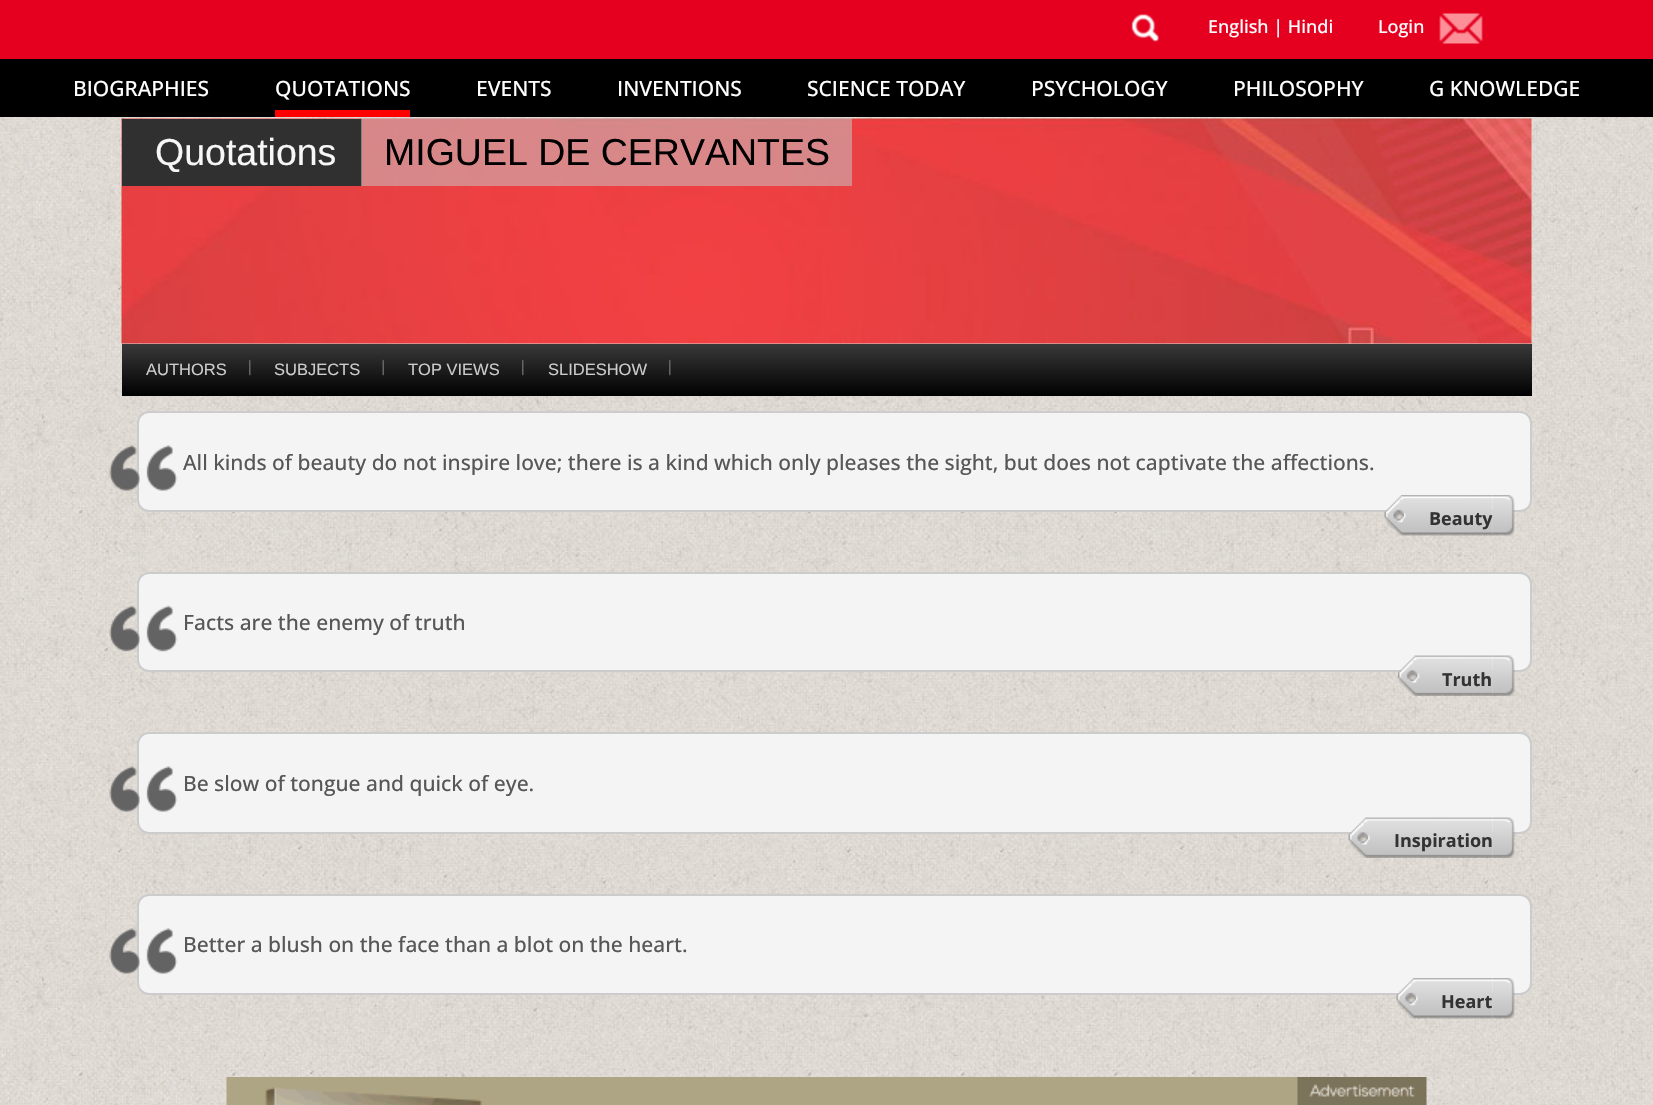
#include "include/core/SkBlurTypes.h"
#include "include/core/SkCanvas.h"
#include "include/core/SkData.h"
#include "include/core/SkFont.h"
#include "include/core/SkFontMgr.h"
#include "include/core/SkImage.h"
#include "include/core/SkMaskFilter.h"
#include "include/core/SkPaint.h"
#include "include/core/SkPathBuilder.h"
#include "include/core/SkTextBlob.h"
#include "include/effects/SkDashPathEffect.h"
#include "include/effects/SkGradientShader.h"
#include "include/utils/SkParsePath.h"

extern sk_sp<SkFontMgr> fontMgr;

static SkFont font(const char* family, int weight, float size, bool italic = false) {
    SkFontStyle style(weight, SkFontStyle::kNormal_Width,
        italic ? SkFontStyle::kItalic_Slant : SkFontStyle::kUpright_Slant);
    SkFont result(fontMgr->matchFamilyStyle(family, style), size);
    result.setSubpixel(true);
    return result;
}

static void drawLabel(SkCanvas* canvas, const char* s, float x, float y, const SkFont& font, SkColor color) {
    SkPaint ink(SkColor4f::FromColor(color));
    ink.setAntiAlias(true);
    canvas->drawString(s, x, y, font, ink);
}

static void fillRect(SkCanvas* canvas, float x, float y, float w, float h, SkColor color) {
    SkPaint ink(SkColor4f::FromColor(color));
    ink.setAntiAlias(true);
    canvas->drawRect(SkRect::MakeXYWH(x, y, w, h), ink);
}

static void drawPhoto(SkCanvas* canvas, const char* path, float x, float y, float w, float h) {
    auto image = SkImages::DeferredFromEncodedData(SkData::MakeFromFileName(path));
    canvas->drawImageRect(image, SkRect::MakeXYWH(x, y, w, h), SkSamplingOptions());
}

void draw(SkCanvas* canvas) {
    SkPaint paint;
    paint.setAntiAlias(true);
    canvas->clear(0xFFFFFFFF);
    drawPhoto(canvas, "assets/img1.png", 0, 117, 1653, 988);
    fillRect(canvas, 0, 0, 1653, 59, 0xFFE4001E);
    fillRect(canvas, 0, 59, 1653, 58, 0xFF000000);
    drawPhoto(canvas, "assets/img2.png", 1131, 14, 28, 28);
    SkFont font1 = font("Open Sans", 500, 18);
    drawLabel(canvas, "English | Hindi", 1208, 33, font1, 0xFFFFFFFF);
    drawLabel(canvas, "Login", 1378, 33, font1, 0xFFFFFFFF);
    drawPhoto(canvas, "assets/img3.png", 1439, 13, 44, 31);
    SkFont font2 = font("Open Sans", 500, 21);
    drawLabel(canvas, "BIOGRAPHIES", 73, 96, font2, 0xFFFFFFFF);
    fillRect(canvas, 275, 110, 135, 7, 0xFFFF0000);
    drawLabel(canvas, "QUOTATIONS", 275, 96, font2, 0xFFFFFFFF);
    drawLabel(canvas, "EVENTS", 476, 96, font2, 0xFFFFFFFF);
    drawLabel(canvas, "INVENTIONS", 617, 96, font2, 0xFFFFFFFF);
    drawLabel(canvas, "SCIENCE TODAY", 807, 96, font2, 0xFFFFFFFF);
    drawLabel(canvas, "PSYCHOLOGY", 1031, 96, font2, 0xFFFFFFFF);
    drawLabel(canvas, "PHILOSOPHY", 1233, 96, font2, 0xFFFFFFFF);
    drawLabel(canvas, "G KNOWLEDGE", 1429, 96, font2, 0xFFFFFFFF);
    drawPhoto(canvas, "assets/img4.png", 121, 118, 1411, 226);
    fillRect(canvas, 122, 119, 240, 67, 0xFF303030);
    SkFont font3 = font("Liberation Sans", 400, 37.5f);
    drawLabel(canvas, "Quotations", 155, 165, font3, 0xFFF7F7F7);
    fillRect(canvas, 361, 118, 491, 68, 0x87C6C6C6);
    drawLabel(canvas, "MIGUEL DE CERVANTES", 384, 165, font3, 0xFF000000);
    {
        const SkColor colors[] = {0xFF3A3A3A, 0xFF000000};
        const float stops[] = {0, 1};
        const SkPoint ends[] = {{827, 343}, {827, 396}};
        paint.setShader(SkGradientShader::MakeLinear(ends, colors, stops, 2, SkTileMode::kClamp));
        paint.setAlpha(255);
    }
    canvas->drawRect(SkRect::MakeXYWH(122, 344, 1410, 52), paint);
    SkFont font4 = font("Liberation Sans", 400, 16.5f);
    drawLabel(canvas, "AUTHORS", 146, 375, font4, 0xFFCCCCCC);
    drawPhoto(canvas, "assets/img5.png", 249, 359, 2, 17);
    drawLabel(canvas, "SUBJECTS", 274, 375, font4, 0xFFCCCCCC);
    drawPhoto(canvas, "assets/img6.png", 382, 359, 2, 17);
    drawLabel(canvas, "TOP VIEWS", 408, 375, font4, 0xFFCCCCCC);
    drawPhoto(canvas, "assets/img5.png", 522, 359, 2, 17);
    drawLabel(canvas, "SLIDESHOW", 548, 375, font4, 0xFFCCCCCC);
    drawPhoto(canvas, "assets/img5.png", 669, 359, 2, 17);
    paint.setShader(nullptr);
    paint.setColor(0xFFF4F4F4);
    canvas->drawRoundRect(SkRect::MakeXYWH(138, 412, 1393, 99), 11, 11, paint);
    paint.setStroke(true);
    paint.setStrokeWidth(2);
    paint.setColor(0xFFCCCCCC);
    canvas->drawRoundRect(SkRect::MakeXYWH(138, 412, 1393, 99), 11, 11, paint);
    drawPhoto(canvas, "assets/img7.png", 109, 445, 69, 46);
    drawLabel(canvas, "All kinds of beauty do not inspire love; there is a kind which only pleases the sight, but does not captivate the affections.", 183, 470, font2, 0xFF575757);
    drawPhoto(canvas, "assets/img8.png", 1384, 495, 109, 41);
    SkFont font5 = font("Open Sans", 700, 18);
    drawLabel(canvas, "Beauty", 1429, 525, font5, 0xFF333333);
    drawPhoto(canvas, "assets/img9.png", 1492, 495, 23, 41);
    paint.setStroke(false);
    paint.setColor(0xFFF4F4F4);
    canvas->drawRoundRect(SkRect::MakeXYWH(138, 573, 1393, 98), 11, 11, paint);
    paint.setStroke(true);
    paint.setColor(0xFFCCCCCC);
    canvas->drawRoundRect(SkRect::MakeXYWH(138, 573, 1393, 98), 11, 11, paint);
    drawPhoto(canvas, "assets/img10.png", 109, 605, 69, 47);
    drawLabel(canvas, "Facts are the enemy of truth", 183, 630, font2, 0xFF575757);
    drawPhoto(canvas, "assets/img11.png", 1398, 655, 95, 41);
    drawLabel(canvas, "Truth", 1442, 686, font5, 0xFF333333);
    drawPhoto(canvas, "assets/img12.png", 1492, 655, 23, 41);
    paint.setStroke(false);
    paint.setColor(0xFFF4F4F4);
    canvas->drawRoundRect(SkRect::MakeXYWH(138, 733, 1393, 100), 11, 11, paint);
    paint.setStroke(true);
    paint.setColor(0xFFCCCCCC);
    canvas->drawRoundRect(SkRect::MakeXYWH(138, 733, 1393, 100), 11, 11, paint);
    drawPhoto(canvas, "assets/img13.png", 109, 766, 69, 46);
    drawLabel(canvas, "Be slow of tongue and quick of eye.", 183, 791, font2, 0xFF575757);
    drawPhoto(canvas, "assets/img14.png", 1348, 817, 145, 41);
    drawLabel(canvas, "Inspiration", 1394, 847, font5, 0xFF333333);
    drawPhoto(canvas, "assets/img15.png", 1492, 817, 23, 41);
    paint.setStroke(false);
    paint.setColor(0xFFF4F4F4);
    canvas->drawRoundRect(SkRect::MakeXYWH(138, 895, 1393, 99), 11, 11, paint);
    paint.setStroke(true);
    paint.setColor(0xFFCCCCCC);
    canvas->drawRoundRect(SkRect::MakeXYWH(138, 895, 1393, 99), 11, 11, paint);
    drawPhoto(canvas, "assets/img16.png", 109, 928, 69, 46);
    drawLabel(canvas, "Better a blush on the face than a blot on the heart.", 183, 952, font2, 0xFF575757);
    drawPhoto(canvas, "assets/img17.png", 1396, 978, 97, 41);
    drawLabel(canvas, "Heart", 1441, 1008, font5, 0xFF333333);
    drawPhoto(canvas, "assets/img18.png", 1492, 978, 23, 41);
    drawPhoto(canvas, "assets/img19.png", 226, 1077, 1201, 28);
}
